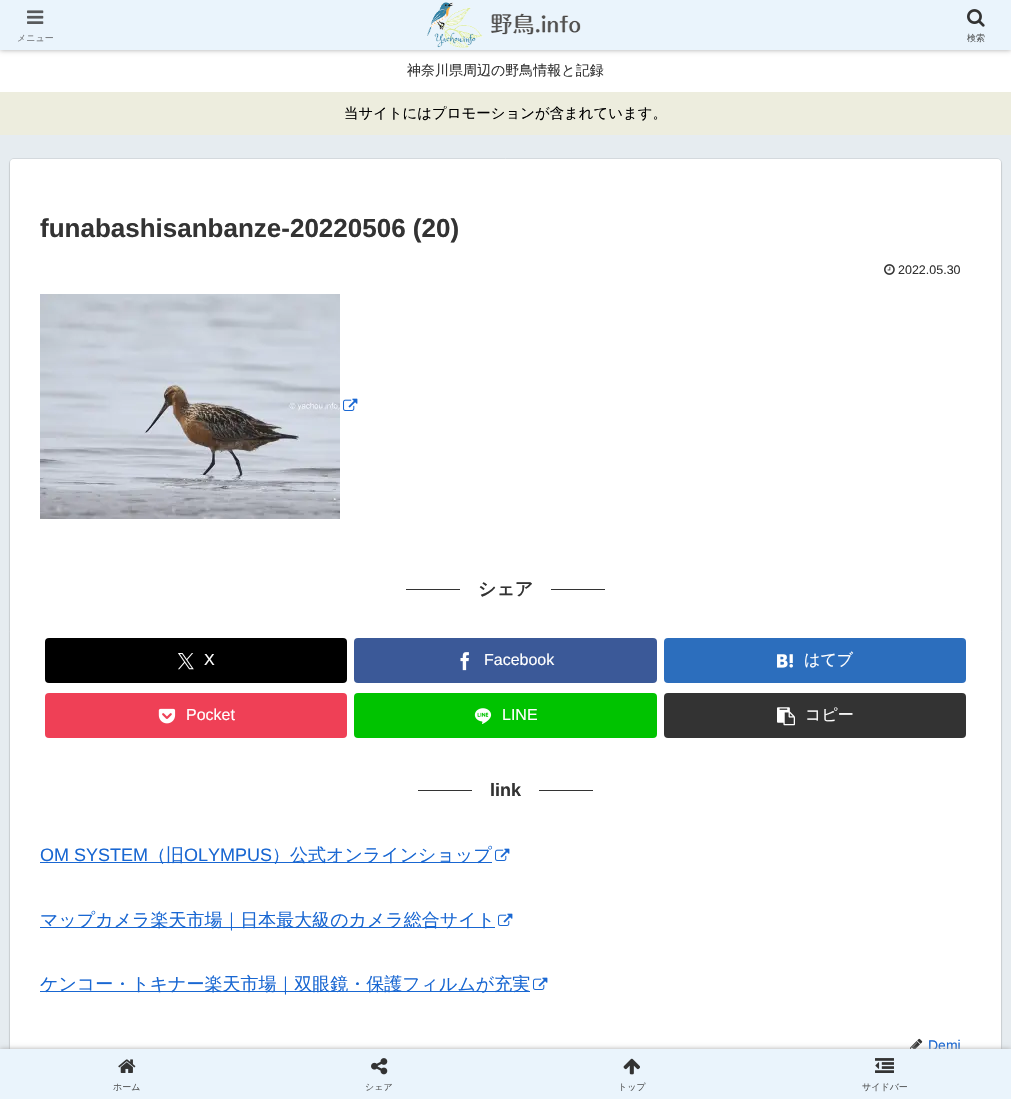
#include "include/core/SkBlurTypes.h"
#include "include/core/SkCanvas.h"
#include "include/core/SkData.h"
#include "include/core/SkFont.h"
#include "include/core/SkFontMgr.h"
#include "include/core/SkImage.h"
#include "include/core/SkMaskFilter.h"
#include "include/core/SkPaint.h"
#include "include/core/SkPathBuilder.h"
#include "include/core/SkTextBlob.h"
#include "include/effects/SkDashPathEffect.h"
#include "include/effects/SkGradientShader.h"
#include "include/utils/SkParsePath.h"

extern sk_sp<SkFontMgr> fontMgr;

static SkFont font(const char* family, int weight, float size, bool italic = false) {
    SkFontStyle style(weight, SkFontStyle::kNormal_Width,
        italic ? SkFontStyle::kItalic_Slant : SkFontStyle::kUpright_Slant);
    SkFont result(fontMgr->matchFamilyStyle(family, style), size);
    result.setSubpixel(true);
    return result;
}

static void drawLabel(SkCanvas* canvas, const char* s, float x, float y, const SkFont& font, SkColor color) {
    SkPaint ink(SkColor4f::FromColor(color));
    ink.setAntiAlias(true);
    canvas->drawString(s, x, y, font, ink);
}

static void fillRect(SkCanvas* canvas, float x, float y, float w, float h, SkColor color) {
    SkPaint ink(SkColor4f::FromColor(color));
    ink.setAntiAlias(true);
    canvas->drawRect(SkRect::MakeXYWH(x, y, w, h), ink);
}

static void fillRRect(SkCanvas* canvas, float x, float y, float w, float h, float radius, SkColor color) {
    SkPaint ink(SkColor4f::FromColor(color));
    ink.setAntiAlias(true);
    canvas->drawRoundRect(SkRect::MakeXYWH(x, y, w, h), radius, radius, ink);
}

static void drawPhoto(SkCanvas* canvas, const char* path, float x, float y, float w, float h) {
    auto image = SkImages::DeferredFromEncodedData(SkData::MakeFromFileName(path));
    canvas->drawImageRect(image, SkRect::MakeXYWH(x, y, w, h), SkSamplingOptions());
}

void draw(SkCanvas* canvas) {
    SkPaint paint;
    paint.setAntiAlias(true);
    canvas->clear(0xFFE6ECF0);
    fillRect(canvas, 0, 50, 1011, 42, 0xFFFFFFFF);
    paint.setColor(0xFFA9A9A9);
    paint.setMaskFilter(SkMaskFilter::MakeBlur(kNormal_SkBlurStyle, 2.5f));
    canvas->drawRect(SkRect::MakeXYWH(0, 0, 1011, 50), paint);
    paint.setMaskFilter(nullptr);
    fillRect(canvas, 0, 0, 1011, 50, 0xFFEAF4FC);
    drawPhoto(canvas, "assets/img1.png", 27, 10, 17, 14);
    SkFont font1 = font("WenQuanYi Zen Hei", 500, 9);
    drawLabel(canvas, "メニュー", 17, 41, font1, 0xFF75787B);
    drawPhoto(canvas, "assets/img2.png", 427, 2, 154, 46);
    drawPhoto(canvas, "assets/img3.png", 967, 9, 18, 18);
    drawLabel(canvas, "検索", 967, 41, font1, 0xFF585A5B);
    SkFont font2 = font("WenQuanYi Zen Hei", 500, 14);
    drawLabel(canvas, "神奈川県周辺の野鳥情報と記録", 407, 75, font2, 0xFF333333);
    fillRect(canvas, 0, 92, 1011, 43, 0xFFEDEDDE);
    SkFont font3 = font("WenQuanYi Zen Hei", 500, 14.4f);
    drawLabel(canvas, "当サイトにはプロモーションが含まれています。", 344, 118, font3, 0xFF000000);
    paint.setStroke(true);
    paint.setStrokeWidth(1);
    paint.setColor(0xFFD4D9DD);
    canvas->drawRoundRect(SkRect::MakeXYWH(9.5f, 158.5f, 992, 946), 4.5f, 4.5f, paint);
    paint.setStroke(false);
    paint.setColor(0x29000000);
    paint.setMaskFilter(SkMaskFilter::MakeBlur(kNormal_SkBlurStyle, 1));
    canvas->drawRoundRect(SkRect::MakeXYWH(10, 161, 991, 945), 4, 4, paint);
    paint.setMaskFilter(nullptr);
    fillRRect(canvas, 10, 159, 991, 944, 4, 0xFFFFFFFF);
    SkFont font4 = font("Liberation Sans", 700, 26);
    drawLabel(canvas, "funabashisanbanze-20220506 (20)", 40, 237, font4, 0xFF333333);
    drawPhoto(canvas, "assets/img4.png", 884, 264, 11, 11);
    SkFont font5 = font("Liberation Sans", 400, 12.5f);
    drawLabel(canvas, "2022.05.30", 898, 274, font5, 0xFF333333);
    drawPhoto(canvas, "assets/img5.png", 40, 294, 300, 225);
    drawPhoto(canvas, "assets/img6.png", 343, 398, 15, 13);
    fillRect(canvas, 406, 589, 54, 1, 0xFF333333);
    SkFont font6 = font("WenQuanYi Zen Hei", 700, 18);
    drawLabel(canvas, "シェア", 478, 595, font6, 0xFF333333);
    fillRect(canvas, 551, 589, 54, 1, 0xFF333333);
    fillRRect(canvas, 45, 638, 302, 45, 4, 0xFF000000);
    drawPhoto(canvas, "assets/img7.png", 178, 653, 16, 17);
    SkFont font7 = font("Liberation Sans", 400, 16);
    drawLabel(canvas, "X", 204, 665, font7, 0xFFFFFFFF);
    fillRRect(canvas, 354, 638, 303, 45, 4, 0xFF3B5998);
    drawPhoto(canvas, "assets/img8.png", 460, 652, 9, 19);
    drawLabel(canvas, "Facebook", 484, 665, font7, 0xFFFFFFFF);
    fillRRect(canvas, 664, 638, 302, 45, 4, 0xFF2C6EBD);
    drawPhoto(canvas, "assets/img9.png", 777, 654, 16, 14);
    SkFont font8 = font("WenQuanYi Zen Hei", 500, 16);
    drawLabel(canvas, "はてブ", 804, 665, font8, 0xFFFFFFFF);
    fillRRect(canvas, 45, 693, 302, 45, 4, 0xFFEF4056);
    drawPhoto(canvas, "assets/img10.png", 158, 708, 18, 16);
    drawLabel(canvas, "Pocket", 186, 720, font7, 0xFFFFFFFF);
    fillRRect(canvas, 354, 693, 303, 45, 4, 0xFF00C300);
    drawPhoto(canvas, "assets/img11.png", 474, 708, 18, 16);
    drawLabel(canvas, "LINE", 502, 720, font7, 0xFFFFFFFF);
    fillRRect(canvas, 664, 693, 302, 45, 4, 0xFF333333);
    drawPhoto(canvas, "assets/img12.png", 777, 707, 18, 19);
    drawLabel(canvas, "コピー", 805, 720, font8, 0xFFFFFFFF);
    fillRect(canvas, 418, 790, 54, 1, 0xFF333333);
    SkFont font9 = font("Liberation Sans", 700, 18);
    drawLabel(canvas, "link", 490, 796, font9, 0xFF333333);
    fillRect(canvas, 539, 790, 54, 1, 0xFF333333);
    SkFont font10 = font("Liberation Sans", 400, 18);
    drawLabel(canvas, "OM SYSTEM", 40, 861, font10, 0xFF1967D2);
    fillRect(canvas, 40, 862, 452, 1, 0xFF1967D2);
    SkFont font11 = font("WenQuanYi Zen Hei", 500, 18);
    drawLabel(canvas, "（旧", 148, 861, font11, 0xFF1967D2);
    drawLabel(canvas, "OLYMPUS", 184, 861, font10, 0xFF1967D2);
    drawLabel(canvas, "）公式オンラインショップ", 272, 861, font11, 0xFF1967D2);
    drawPhoto(canvas, "assets/img6.png", 495, 848, 15, 13);
    fillRect(canvas, 40, 927, 455, 1, 0xFF1967D2);
    drawLabel(canvas, "マップカメラ楽天市場｜日本最大級のカメラ総合サイト", 40, 926, font11, 0xFF1967D2);
    drawPhoto(canvas, "assets/img6.png", 498, 913, 15, 13);
    fillRect(canvas, 40, 991, 490, 1, 0xFF1967D2);
    drawLabel(canvas, "ケンコー・トキナー楽天市場｜双眼鏡・保護フィルムが充実", 40, 990, font11, 0xFF1967D2);
    drawPhoto(canvas, "assets/img6.png", 533, 977, 15, 13);
    drawPhoto(canvas, "assets/img13.png", 910, 1038, 13, 11);
    SkFont font12 = font("Liberation Sans", 400, 14);
    drawLabel(canvas, "Demi", 928, 1050, font12, 0xFF1967D2);
    paint.setColor(0xFFA9A9A9);
    paint.setMaskFilter(SkMaskFilter::MakeBlur(kNormal_SkBlurStyle, 2.5f));
    canvas->drawRect(SkRect::MakeXYWH(0, 1049, 1011, 50), paint);
    paint.setMaskFilter(nullptr);
    fillRect(canvas, 0, 1049, 1011, 50, 0xFFEAF4FC);
    drawPhoto(canvas, "assets/img14.png", 118, 1059, 18, 14);
    drawLabel(canvas, "ホーム", 113, 1090, font1, 0xFF585A5B);
    drawPhoto(canvas, "assets/img15.png", 371, 1058, 17, 17);
    drawLabel(canvas, "シェア", 365, 1090, font1, 0xFF585A5B);
    drawPhoto(canvas, "assets/img16.png", 623, 1058, 17, 17);
    drawLabel(canvas, "トップ", 618, 1090, font1, 0xFF585A5B);
    drawPhoto(canvas, "assets/img17.png", 875, 1058, 19, 15);
    drawLabel(canvas, "サイドバー", 862, 1090, font1, 0xFF585A5B);
}
